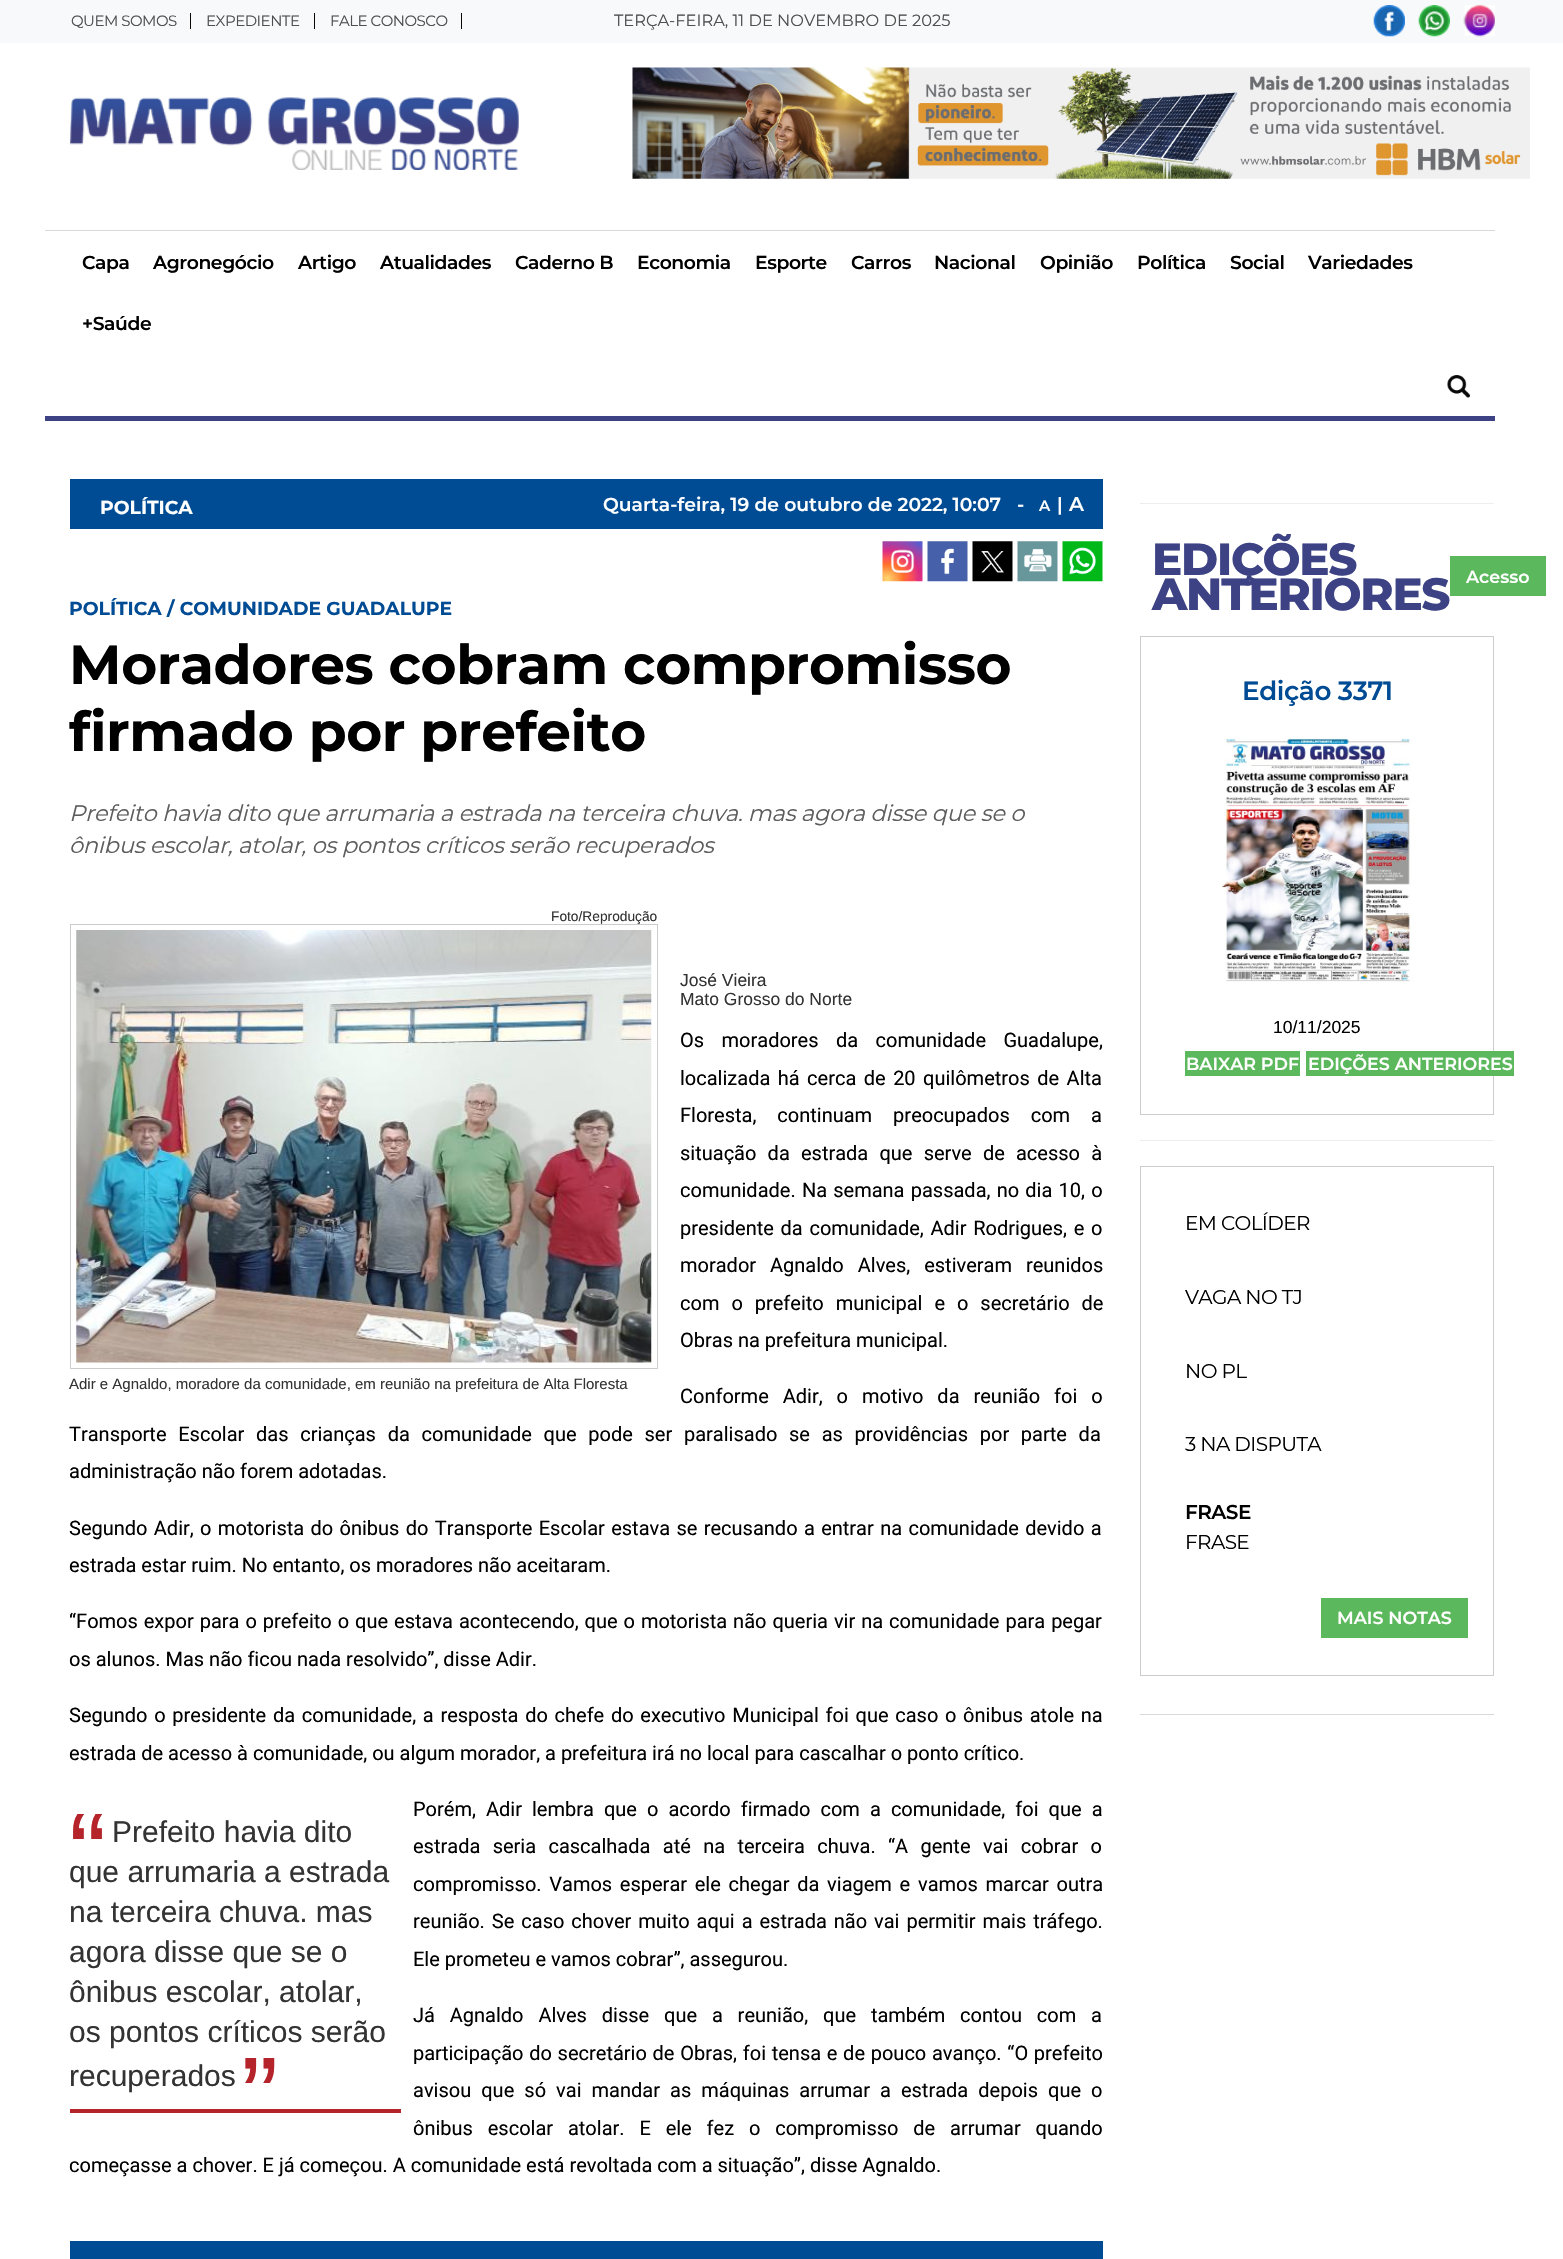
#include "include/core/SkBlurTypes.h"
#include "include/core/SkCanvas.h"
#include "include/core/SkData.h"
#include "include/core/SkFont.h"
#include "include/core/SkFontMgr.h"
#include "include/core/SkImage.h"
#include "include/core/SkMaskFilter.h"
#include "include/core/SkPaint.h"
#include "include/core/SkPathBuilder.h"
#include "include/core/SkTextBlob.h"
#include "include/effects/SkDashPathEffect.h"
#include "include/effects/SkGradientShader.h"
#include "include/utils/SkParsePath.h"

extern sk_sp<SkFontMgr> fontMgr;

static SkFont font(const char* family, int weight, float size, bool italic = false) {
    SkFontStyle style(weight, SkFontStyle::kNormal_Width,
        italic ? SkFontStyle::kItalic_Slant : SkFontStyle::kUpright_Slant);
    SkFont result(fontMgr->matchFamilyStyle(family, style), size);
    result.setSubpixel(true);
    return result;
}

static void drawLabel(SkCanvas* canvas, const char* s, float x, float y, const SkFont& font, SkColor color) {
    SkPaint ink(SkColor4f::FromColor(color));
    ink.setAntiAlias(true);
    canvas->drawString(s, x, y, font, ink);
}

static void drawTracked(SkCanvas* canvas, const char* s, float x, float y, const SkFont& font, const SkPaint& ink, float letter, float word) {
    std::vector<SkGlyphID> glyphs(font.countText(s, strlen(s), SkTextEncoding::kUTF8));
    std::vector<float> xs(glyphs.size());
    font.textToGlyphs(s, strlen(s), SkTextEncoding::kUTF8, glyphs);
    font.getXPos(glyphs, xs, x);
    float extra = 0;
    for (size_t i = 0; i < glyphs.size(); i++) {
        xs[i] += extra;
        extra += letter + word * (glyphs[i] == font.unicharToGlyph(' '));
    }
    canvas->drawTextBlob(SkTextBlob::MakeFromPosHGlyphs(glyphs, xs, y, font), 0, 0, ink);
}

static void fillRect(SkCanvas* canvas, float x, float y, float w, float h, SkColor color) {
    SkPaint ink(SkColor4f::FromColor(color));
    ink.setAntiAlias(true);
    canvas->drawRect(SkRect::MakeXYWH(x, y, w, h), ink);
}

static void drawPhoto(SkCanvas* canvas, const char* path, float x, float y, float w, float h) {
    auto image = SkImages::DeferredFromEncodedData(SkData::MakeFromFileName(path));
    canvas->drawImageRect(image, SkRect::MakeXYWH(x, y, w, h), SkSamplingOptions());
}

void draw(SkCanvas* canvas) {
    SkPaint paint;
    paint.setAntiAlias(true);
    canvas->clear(0xFFFFFFFF);
    fillRect(canvas, 0, 0, 1563, 43, 0xFFF8F9FA);
    fillRect(canvas, 190, 13, 1, 16, 0xFF0B0601);
    SkFont font1 = font("Montserrat", 400, 15);
    paint.setColor(0xFF4F4F4F);
    drawTracked(canvas, "QUEM SOMOS", 71, 26, font1, paint, -0.5f, 0);
    fillRect(canvas, 314, 13, 1, 16, 0xFF0B0601);
    drawTracked(canvas, "EXPEDIENTE", 206, 26, font1, paint, -0.5f, 0);
    fillRect(canvas, 461, 13, 1, 16, 0xFF0B0601);
    drawTracked(canvas, "FALE CONOSCO", 330, 26, font1, paint, -0.5f, 0);
    SkFont font2 = font("Montserrat", 400, 16.25f);
    drawLabel(canvas, "TERÇA-FEIRA, 11 DE NOVEMBRO DE 2025", 614, 26, font2, 0xFF4F4F4F);
    drawPhoto(canvas, "assets/img1.png", 1373, 5, 32, 32);
    drawPhoto(canvas, "assets/img2.png", 1418, 5, 32, 32);
    drawPhoto(canvas, "assets/img3.png", 1463, 5, 32, 32);
    drawPhoto(canvas, "assets/img4.png", 70, 97, 449, 73);
    drawPhoto(canvas, "assets/img5.png", 632, 67, 898, 112);
    fillRect(canvas, 45, 230, 1450, 1, 0xFFD9D9D9);
    fillRect(canvas, 45, 416, 1450, 5, 0xFF3C4283);
    SkFont font3 = font("Montserrat", 600, 18.75f);
    paint.setColor(0xFF000000);
    drawTracked(canvas, "Capa", 82, 269, font3, paint, -0.4f, 0);
    drawTracked(canvas, "Agronegócio", 153, 269, font3, paint, -0.4f, 0);
    drawTracked(canvas, "Artigo", 298, 269, font3, paint, -0.4f, 0);
    drawTracked(canvas, "Atualidades", 380, 269, font3, paint, -0.4f, 0);
    drawTracked(canvas, "Caderno B", 515, 269, font3, paint, -0.4f, 0);
    drawTracked(canvas, "Economia", 637, 269, font3, paint, -0.4f, 0);
    drawTracked(canvas, "Esporte", 755, 269, font3, paint, -0.4f, 0);
    drawTracked(canvas, "Carros", 851, 269, font3, paint, -0.4f, 0);
    drawTracked(canvas, "Nacional", 934, 269, font3, paint, -0.4f, 0);
    drawTracked(canvas, "Opinião", 1040, 269, font3, paint, -0.4f, 0);
    drawTracked(canvas, "Política", 1137, 269, font3, paint, -0.4f, 0);
    drawTracked(canvas, "Social", 1230, 269, font3, paint, -0.4f, 0);
    drawTracked(canvas, "Variedades", 1308, 269, font3, paint, -0.4f, 0);
    drawTracked(canvas, "+Saúde", 82, 330, font3, paint, -0.4f, 0);
    drawPhoto(canvas, "assets/img6.png", 1447, 375, 23, 23);
    fillRect(canvas, 70, 479, 1033, 50, 0xFF004C94);
    SkFont font4 = font("Montserrat", 700, 18.75f);
    drawLabel(canvas, "POLÍTICA", 100, 514, font4, 0xFFFFFFFF);
    drawLabel(canvas, "Quarta-feira, 19 de outubro de 2022, 10:07", 603, 511, font3, 0xFFFFFFFF);
    drawLabel(canvas, "-", 1017, 511, font3, 0xFFFFFFFF);
    SkFont font5 = font("Montserrat", 600, 15);
    drawLabel(canvas, "A", 1039, 511, font5, 0xFFFFFFFF);
    drawLabel(canvas, "|", 1057, 511, font3, 0xFFFFFFFF);
    SkFont font6 = font("Montserrat", 600, 20);
    drawLabel(canvas, "A", 1069, 511, font6, 0xFFFFFFFF);
    drawPhoto(canvas, "assets/img7.png", 882, 541, 41, 41);
    drawPhoto(canvas, "assets/img8.png", 927, 541, 41, 41);
    drawPhoto(canvas, "assets/img9.png", 972, 541, 41, 41);
    drawPhoto(canvas, "assets/img10.png", 1017, 541, 41, 41);
    drawPhoto(canvas, "assets/img11.png", 1062, 541, 41, 41);
    drawLabel(canvas, "POLÍTICA / COMUNIDADE GUADALUPE", 69, 615, font4, 0xFF004C94);
    SkFont font7 = font("Montserrat", 700, 55);
    drawTracked(canvas, "Moradores cobram compromisso", 69, 684, font7, paint, -0.4f, 0);
    drawTracked(canvas, "firmado por prefeito", 69, 751, font7, paint, -0.4f, 0);
    SkFont font8 = font("Montserrat", 400, 22.5f, true);
    paint.setColor(0xFF5D5D5D);
    drawTracked(canvas, "Prefeito havia dito que arrumaria a estrada na terceira chuva. mas agora disse que se o", 69, 821, font8, paint, -0.25f, 0);
    drawTracked(canvas, "ônibus escolar, atolar, os pontos críticos serão recuperados", 69, 853, font8, paint, -0.25f, 0);
    SkFont font9 = font("Liberation Sans", 400, 13.75f);
    drawLabel(canvas, "Foto/Reprodução", 551, 921, font9, 0xFF333333);
    paint.setStroke(true);
    paint.setStrokeWidth(1);
    paint.setColor(0xFFCCCCCC);
    canvas->drawRect(SkRect::MakeXYWH(70.5f, 924.5f, 587, 444), paint);
    drawPhoto(canvas, "assets/img12.png", 76, 930, 576, 433);
    SkFont font10 = font("Liberation Sans", 400, 15);
    drawLabel(canvas, "Adir e Agnaldo, moradore da comunidade, em reunião na prefeitura de Alta Floresta", 69, 1389, font10, 0xFF333333);
    SkFont font11 = font("Liberation Sans", 400, 17.5f);
    drawLabel(canvas, "José Vieira", 680, 986, font11, 0xFF333333);
    drawLabel(canvas, "Mato Grosso do Norte", 680, 1005, font11, 0xFF333333);
    SkFont font12 = font("Roboto", 400, 20);
    paint.setStroke(false);
    paint.setColor(0xFF000000);
    drawTracked(canvas, "Os moradores da comunidade Guadalupe,", 680, 1047, font12, paint, 0, 12.5f);
    drawTracked(canvas, "localizada há cerca de 20 quilômetros de Alta", 680, 1085, font12, paint, 0, 2.5f);
    drawTracked(canvas, "Floresta, continuam preocupados com a", 680, 1122, font12, paint, 0, 16);
    drawTracked(canvas, "situação da estrada que serve de acesso à", 680, 1160, font12, paint, 0, 6.25f);
    drawTracked(canvas, "comunidade. Na semana passada, no dia 10, o", 680, 1197, font12, paint, 0, 1.25f);
    drawTracked(canvas, "presidente da comunidade, Adir Rodrigues, e o", 680, 1235, font12, paint, 0, 1.75f);
    drawTracked(canvas, "morador Agnaldo Alves, estiveram reunidos", 680, 1272, font12, paint, 0, 9);
    drawTracked(canvas, "com o prefeito municipal e o secretário de", 680, 1310, font12, paint, 0, 7);
    drawLabel(canvas, "Obras na prefeitura municipal.", 680, 1347, font12, 0xFF000000);
    drawTracked(canvas, "Conforme Adir, o motivo da reunião foi o", 680, 1403, font12, paint, 0, 9);
    drawTracked(canvas, "Transporte Escolar das crianças da comunidade que pode ser paralisado se as providências por parte da", 69, 1441, font12, paint, 0, 6.75f);
    drawLabel(canvas, "administração não forem adotadas.", 69, 1478, font12, 0xFF000000);
    drawTracked(canvas, "Segundo Adir, o motorista do ônibus do Transporte Escolar estava se recusando a entrar na comunidade devido a", 69, 1535, font12, paint, 0, 1.4f);
    drawLabel(canvas, "estrada estar ruim. No entanto, os moradores não aceitaram.", 69, 1572, font12, 0xFF000000);
    drawTracked(canvas, "“Fomos expor para o prefeito o que estava acontecendo, que o motorista não queria vir na comunidade para pegar", 69, 1628, font12, paint, 0, 1);
    drawLabel(canvas, "os alunos. Mas não ficou nada resolvido”, disse Adir.", 69, 1666, font12, 0xFF000000);
    drawTracked(canvas, "Segundo o presidente da comunidade, a resposta do chefe do executivo Municipal foi que caso o ônibus atole na", 69, 1722, font12, paint, 0, 1.75f);
    drawLabel(canvas, "estrada de acesso à comunidade, ou algum morador, a prefeitura irá no local para cascalhar o ponto crítico.", 69, 1760, font12, 0xFF000000);
    fillRect(canvas, 70, 2109, 331, 4, 0xFFB5242B);
    SkFont font13 = font("Liberation Sans", 400, 112);
    drawLabel(canvas, "“", 69, 1891, font13, 0xFFB5242B);
    SkFont font14 = font("Liberation Sans", 400, 30);
    drawLabel(canvas, "Prefeito havia dito", 112, 1842, font14, 0xFF333333);
    drawLabel(canvas, "que arrumaria a estrada", 69, 1882, font14, 0xFF333333);
    drawLabel(canvas, "na terceira chuva. mas", 69, 1922, font14, 0xFF333333);
    drawLabel(canvas, "agora disse que se o", 69, 1962, font14, 0xFF333333);
    drawLabel(canvas, "ônibus escolar, atolar,", 69, 2002, font14, 0xFF333333);
    drawLabel(canvas, "os pontos críticos serão", 69, 2042, font14, 0xFF333333);
    drawLabel(canvas, "recuperados", 69, 2086, font14, 0xFF333333);
    drawLabel(canvas, "”", 241, 2135, font13, 0xFFB5242B);
    drawTracked(canvas, "Porém, Adir lembra que o acordo firmado com a comunidade, foi que a", 413, 1816, font12, paint, 0, 5.1f);
    drawTracked(canvas, "estrada seria cascalhada até na terceira chuva. “A gente vai cobrar o", 413, 1853, font12, paint, 0, 7.4f);
    drawTracked(canvas, "compromisso. Vamos esperar ele chegar da viagem e vamos marcar outra", 413, 1891, font12, paint, 0, 2.75f);
    drawTracked(canvas, "reunião. Se caso chover muito aqui a estrada não vai permitir mais tráfego.", 413, 1928, font12, paint, 0, 2);
    drawLabel(canvas, "Ele prometeu e vamos cobrar”, assegurou.", 413, 1966, font12, 0xFF000000);
    drawTracked(canvas, "Já Agnaldo Alves disse que a reunião, que também contou com a", 413, 2022, font12, paint, 0, 9.9f);
    drawTracked(canvas, "participação do secretário de Obras, foi tensa e de pouco avanço. “O prefeito", 413, 2060, font12, paint, 0, 0.75f);
    drawTracked(canvas, "avisou que só vai mandar as máquinas arrumar a estrada depois que o", 413, 2097, font12, paint, 0, 5.1f);
    drawTracked(canvas, "ônibus escolar atolar. E ele fez o compromisso de arrumar quando", 413, 2135, font12, paint, 0, 9.9f);
    drawLabel(canvas, "começasse a chover. E já começou. A comunidade está revoltada com a situação”, disse Agnaldo.", 69, 2172, font12, 0xFF000000);
    fillRect(canvas, 70, 2241, 1033, 18, 0xFF004C94);
    fillRect(canvas, 1140, 503, 354, 1, 0xFFEEEEEE);
    SkFont font15 = font("Montserrat", 800, 45);
    paint.setColor(0xFF3C4283);
    drawTracked(canvas, "EDIÇÕES", 1152, 575, font15, paint, -1.25f, 0);
    drawTracked(canvas, "ANTERIORES", 1152, 610, font15, paint, -1.25f, 0);
    fillRect(canvas, 1450, 556, 96, 40, 0xFF5CB85C);
    SkFont font16 = font("Montserrat", 600, 17.5f);
    drawLabel(canvas, "Acesso", 1466, 583, font16, 0xFFFFFFFF);
    paint.setStroke(true);
    paint.setColor(0xFFCCCCCC);
    canvas->drawRect(SkRect::MakeXYWH(1140.5f, 636.5f, 353, 478), paint);
    SkFont font17 = font("Montserrat", 600, 26.25f);
    paint.setStroke(false);
    paint.setColor(0xFF004C94);
    drawTracked(canvas, "Edição 3371", 1242, 700, font17, paint, -0.4f, 0);
    drawPhoto(canvas, "assets/img13.png", 1221, 738, 193, 245);
    drawLabel(canvas, "10/11/2025", 1273, 1033, font11, 0xFF000000);
    fillRect(canvas, 1185, 1051, 115, 25, 0xFF5CB85C);
    drawLabel(canvas, "BAIXAR PDF", 1186, 1070, font16, 0xFFFFFFFF);
    fillRect(canvas, 1306, 1051, 208, 25, 0xFF5CB85C);
    drawLabel(canvas, "EDIÇÕES ANTERIORES", 1308, 1070, font16, 0xFFFFFFFF);
    fillRect(canvas, 1140, 1140, 354, 1, 0xFFEEEEEE);
    paint.setStroke(true);
    paint.setColor(0xFFCCCCCC);
    canvas->drawRect(SkRect::MakeXYWH(1140.5f, 1166.5f, 353, 509), paint);
    SkFont font18 = font("Montserrat", 400, 20);
    paint.setStroke(false);
    paint.setColor(0xFF000000);
    drawTracked(canvas, "EM COLÍDER", 1185, 1230, font18, paint, -0.6f, 0);
    drawTracked(canvas, "VAGA NO TJ", 1185, 1304, font18, paint, -0.6f, 0);
    drawTracked(canvas, "NO PL", 1185, 1378, font18, paint, -0.6f, 0);
    drawTracked(canvas, "3 NA DISPUTA", 1185, 1451, font18, paint, -0.6f, 0);
    drawTracked(canvas, "FRASE", 1185, 1519, font6, paint, -0.5f, 0);
    drawTracked(canvas, "FRASE", 1185, 1549, font18, paint, -0.6f, 0);
    fillRect(canvas, 1321, 1598, 147, 40, 0xFF5CB85C);
    drawLabel(canvas, "MAIS NOTAS", 1337, 1624, font16, 0xFFFFFFFF);
    fillRect(canvas, 1140, 1714, 354, 1, 0xFFD9D9D9);
}
